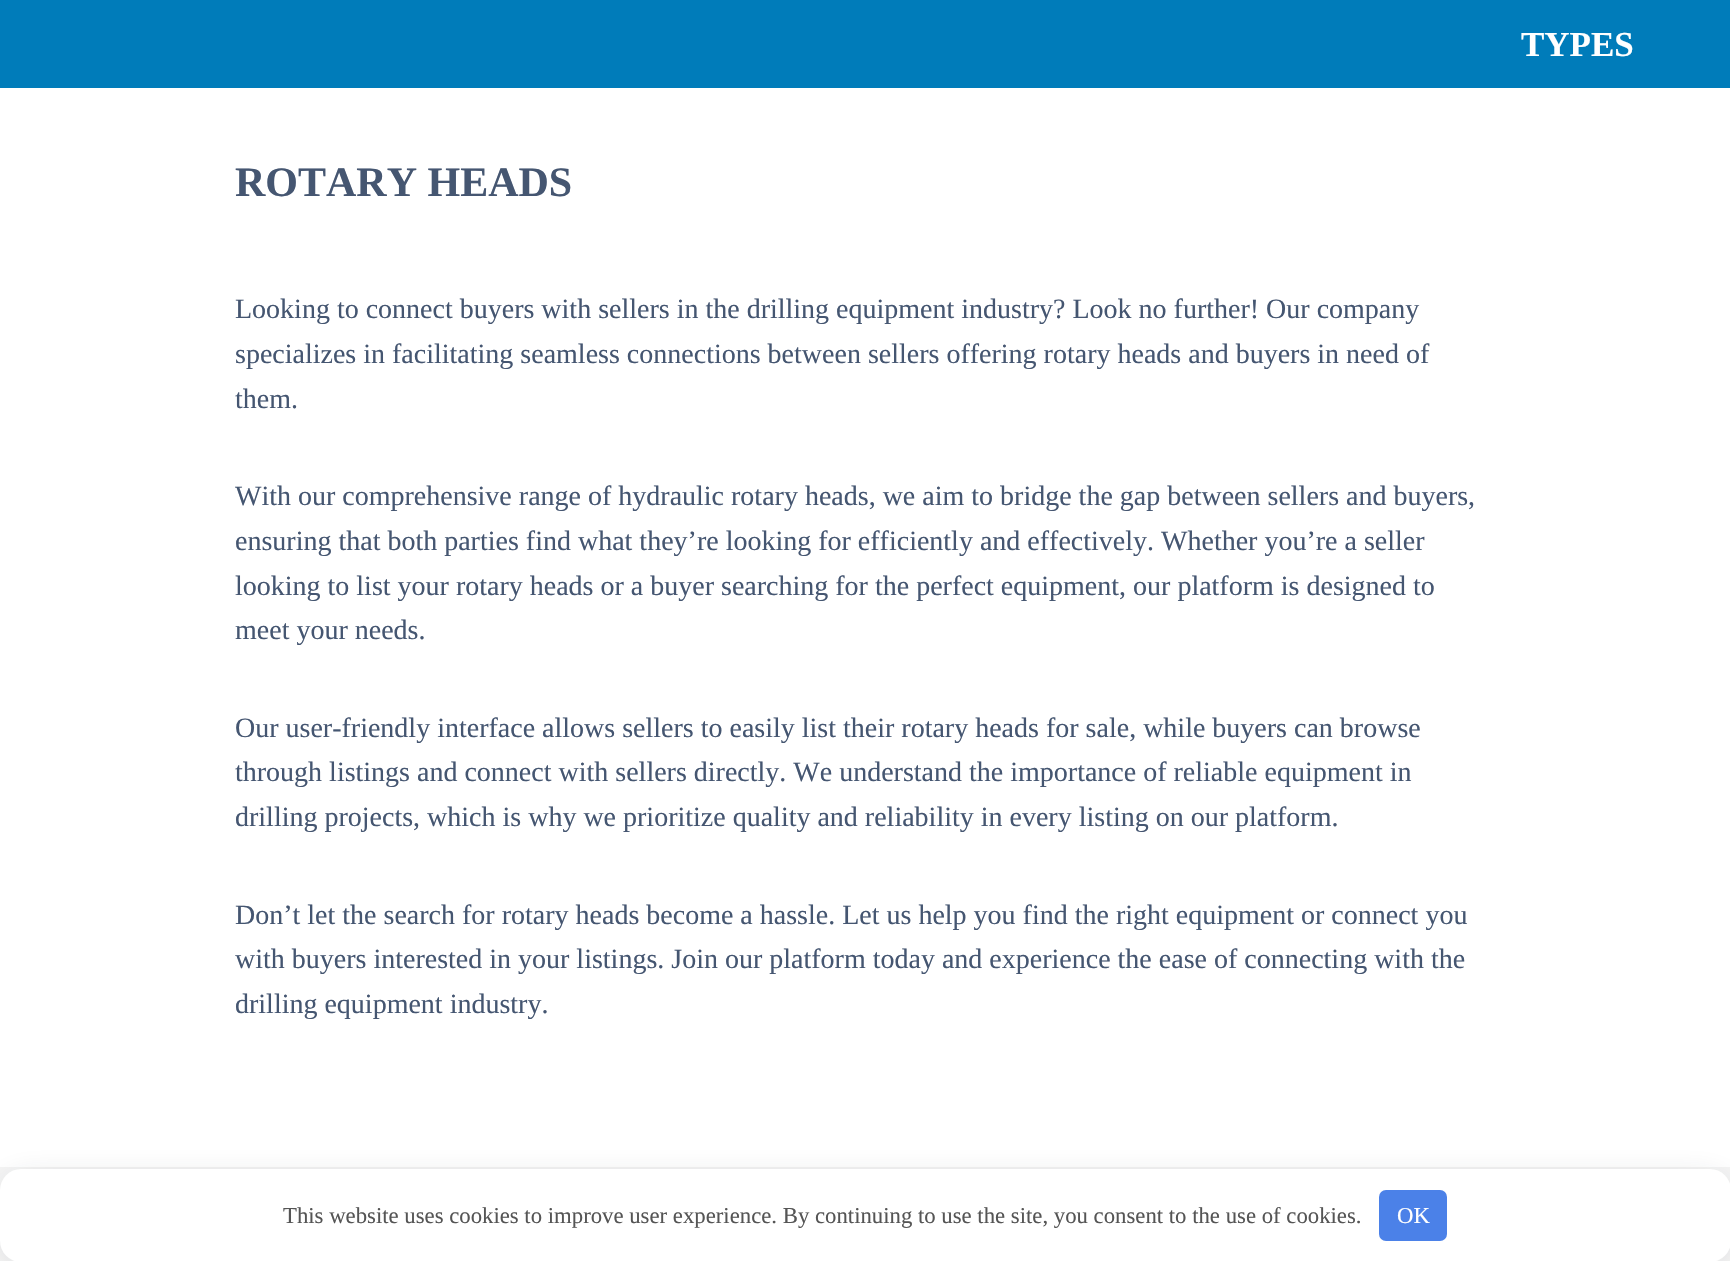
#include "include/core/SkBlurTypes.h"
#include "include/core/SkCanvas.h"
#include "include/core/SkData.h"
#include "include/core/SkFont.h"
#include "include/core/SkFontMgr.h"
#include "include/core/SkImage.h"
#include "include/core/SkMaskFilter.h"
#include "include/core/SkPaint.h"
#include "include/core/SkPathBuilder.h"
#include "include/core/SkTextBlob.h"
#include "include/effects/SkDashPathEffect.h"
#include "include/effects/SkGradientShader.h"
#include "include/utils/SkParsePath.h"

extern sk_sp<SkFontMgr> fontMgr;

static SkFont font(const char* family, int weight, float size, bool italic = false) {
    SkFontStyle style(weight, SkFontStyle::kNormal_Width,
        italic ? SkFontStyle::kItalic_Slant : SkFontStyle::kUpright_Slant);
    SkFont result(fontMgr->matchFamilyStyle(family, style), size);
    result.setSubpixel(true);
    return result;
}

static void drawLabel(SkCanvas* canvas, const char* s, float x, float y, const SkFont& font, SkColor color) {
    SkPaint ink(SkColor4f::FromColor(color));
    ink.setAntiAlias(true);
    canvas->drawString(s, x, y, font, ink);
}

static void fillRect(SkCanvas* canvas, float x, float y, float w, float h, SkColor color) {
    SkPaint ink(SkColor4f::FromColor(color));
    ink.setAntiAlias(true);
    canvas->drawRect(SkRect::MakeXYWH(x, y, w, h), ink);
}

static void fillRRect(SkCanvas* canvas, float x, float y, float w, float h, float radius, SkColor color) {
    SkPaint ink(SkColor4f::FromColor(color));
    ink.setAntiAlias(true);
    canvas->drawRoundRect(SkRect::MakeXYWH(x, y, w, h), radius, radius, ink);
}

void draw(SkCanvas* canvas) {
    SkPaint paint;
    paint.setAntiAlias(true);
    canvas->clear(0xFFFFFFFF);
    fillRect(canvas, 0, 0, 1730, 88, 0xFF007CBA);
    SkFont font1 = font("Liberation Serif", 700, 35);
    drawLabel(canvas, "TYPES", 1521, 56, font1, 0xFFFFFFFF);
    SkFont font2 = font("Liberation Serif", 700, 42);
    drawLabel(canvas, "ROTARY HEADS", 235, 196, font2, 0xFF455671);
    SkFont font3 = font("Liberation Serif", 400, 28);
    drawLabel(canvas, "Looking to connect buyers with sellers in the drilling equipment industry? Look no further! Our company", 235, 318, font3, 0xFF455671);
    drawLabel(canvas, "specializes in facilitating seamless connections between sellers offering rotary heads and buyers in need of", 235, 363, font3, 0xFF455671);
    drawLabel(canvas, "them.", 235, 408, font3, 0xFF455671);
    drawLabel(canvas, "With our comprehensive range of hydraulic rotary heads, we aim to bridge the gap between sellers and buyers,", 235, 505, font3, 0xFF455671);
    drawLabel(canvas, "ensuring that both parties find what they’re looking for efficiently and effectively. Whether you’re a seller", 235, 550, font3, 0xFF455671);
    drawLabel(canvas, "looking to list your rotary heads or a buyer searching for the perfect equipment, our platform is designed to", 235, 595, font3, 0xFF455671);
    drawLabel(canvas, "meet your needs.", 235, 639, font3, 0xFF455671);
    drawLabel(canvas, "Our user-friendly interface allows sellers to easily list their rotary heads for sale, while buyers can browse", 235, 737, font3, 0xFF455671);
    drawLabel(canvas, "through listings and connect with sellers directly. We understand the importance of reliable equipment in", 235, 781, font3, 0xFF455671);
    drawLabel(canvas, "drilling projects, which is why we prioritize quality and reliability in every listing on our platform.", 235, 826, font3, 0xFF455671);
    drawLabel(canvas, "Don’t let the search for rotary heads become a hassle. Let us help you find the right equipment or connect you", 235, 924, font3, 0xFF455671);
    drawLabel(canvas, "with buyers interested in your listings. Join our platform today and experience the ease of connecting with the", 235, 968, font3, 0xFF455671);
    drawLabel(canvas, "drilling equipment industry.", 235, 1013, font3, 0xFF455671);
    fillRect(canvas, 0, 1167, 1730, 94, 0xFFF4F4F4);
    paint.setColor(0x33292C38);
    paint.setMaskFilter(SkMaskFilter::MakeBlur(kNormal_SkBlurStyle, 17.5f));
    canvas->drawRoundRect(SkRect::MakeXYWH(9, 1183, 1713, 75), 12, 12, paint);
    paint.setMaskFilter(nullptr);
    fillRRect(canvas, 0, 1169, 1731, 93, 21, 0xFFFFFFFF);
    SkFont font4 = font("Liberation Serif", 400, 22.75f);
    drawLabel(canvas, "This website uses cookies to improve user experience. By continuing to use the site, you consent to the use of cookies.", 283, 1223, font4, 0xFF555555);
    fillRRect(canvas, 1379, 1190, 68, 51, 7, 0xFF4B81E8);
    drawLabel(canvas, "OK", 1397, 1223, font4, 0xFFFFFFFF);
}
